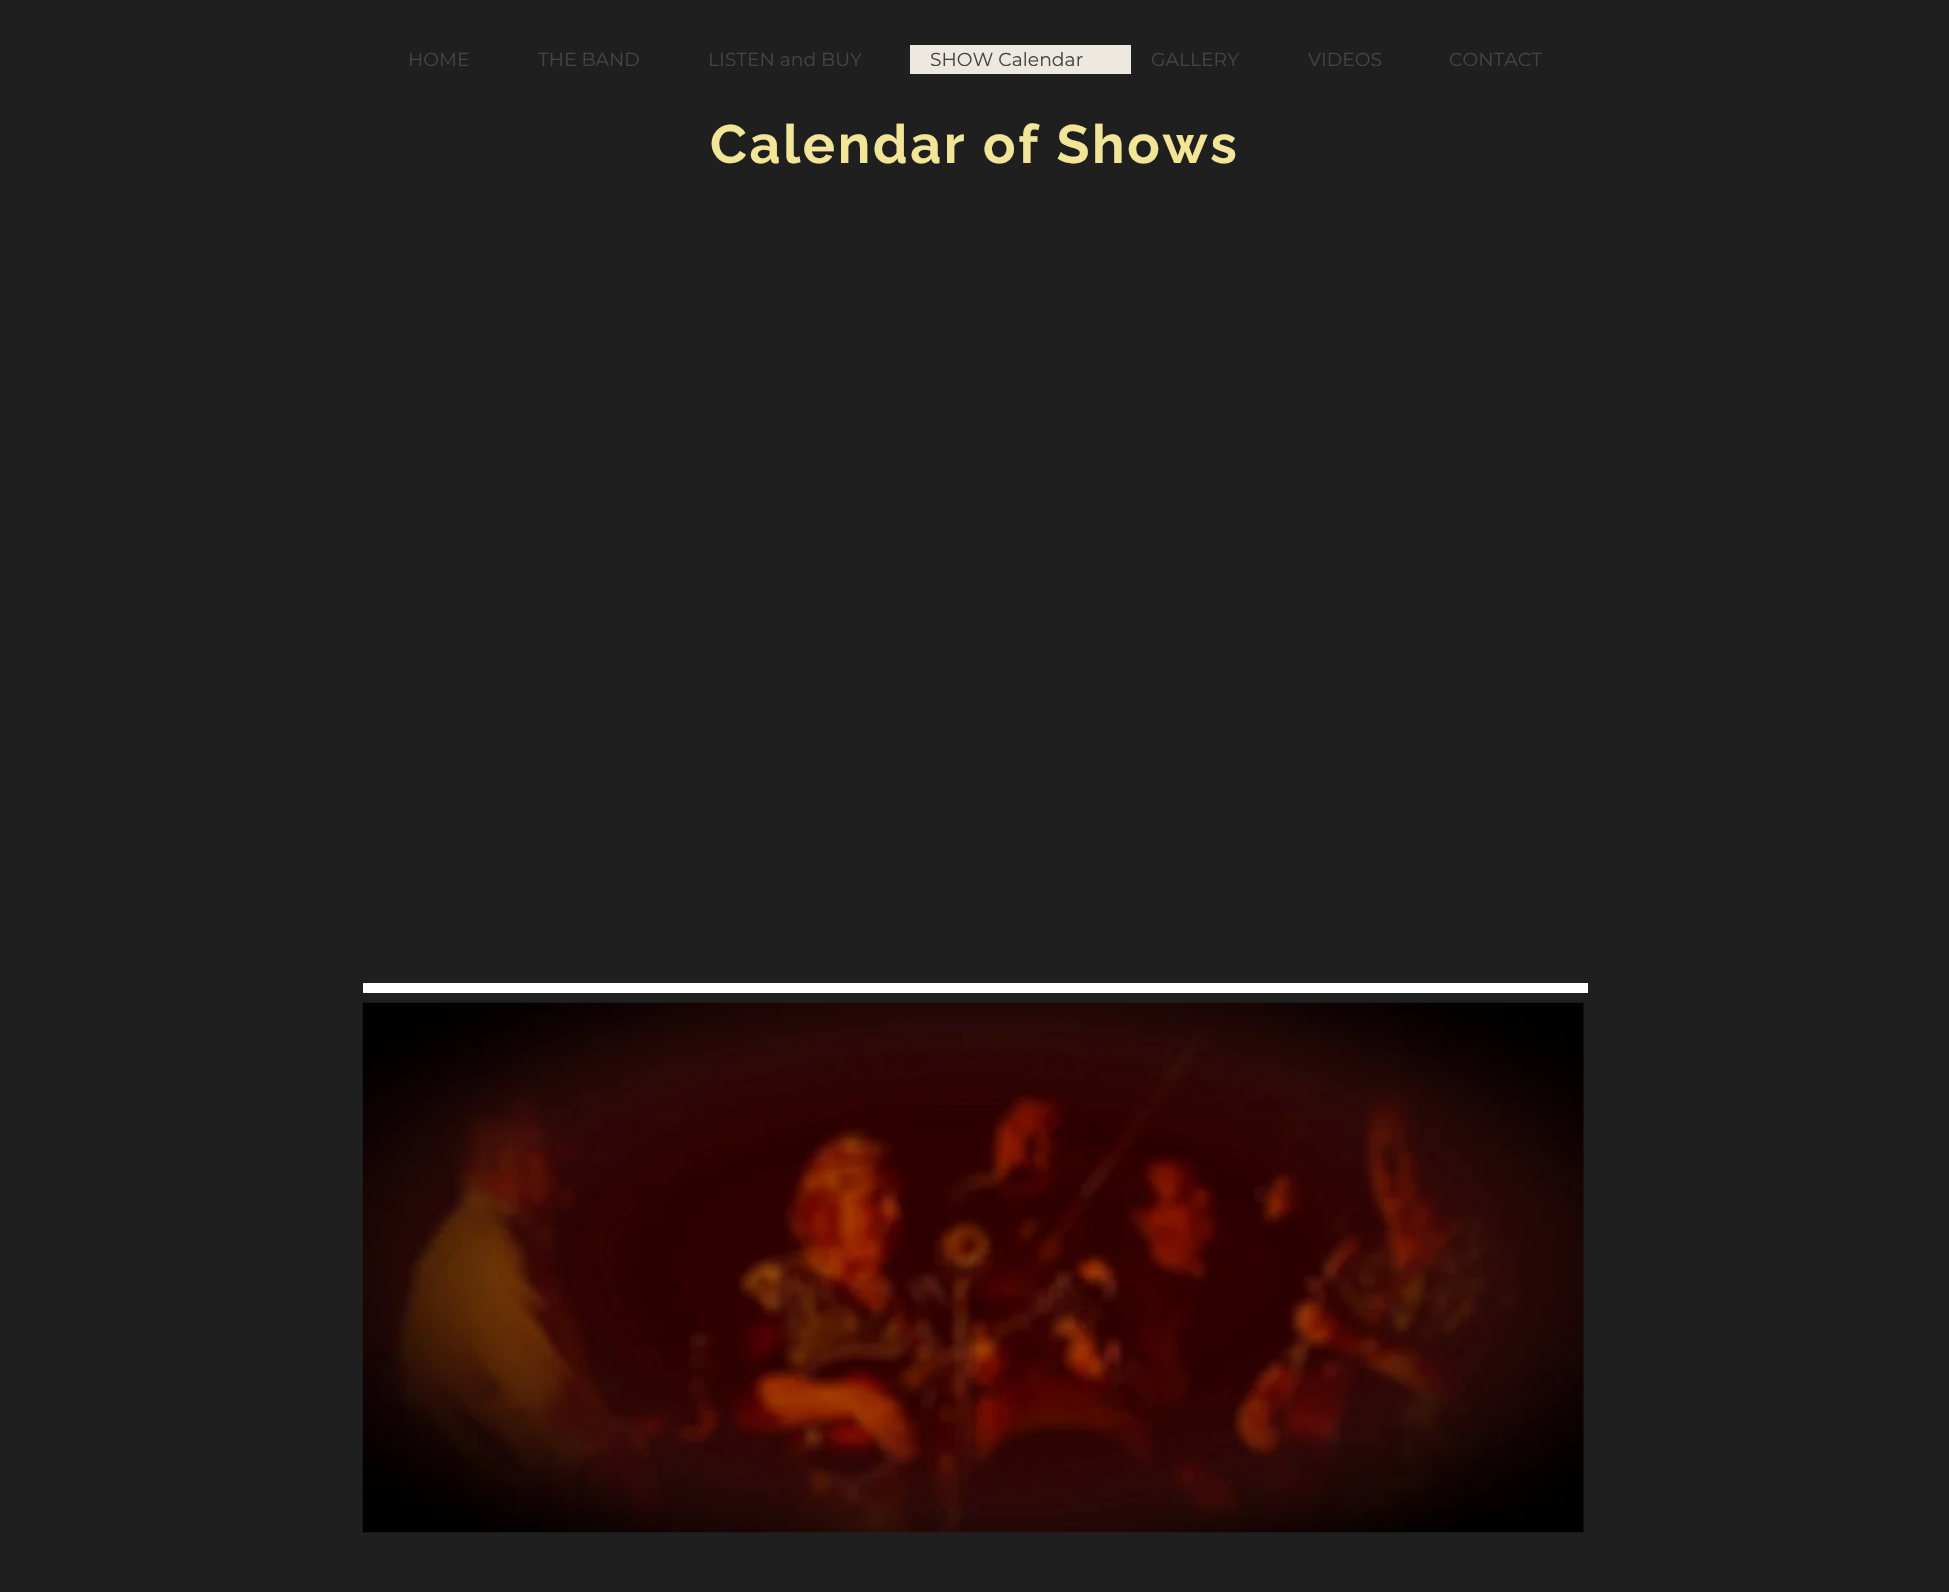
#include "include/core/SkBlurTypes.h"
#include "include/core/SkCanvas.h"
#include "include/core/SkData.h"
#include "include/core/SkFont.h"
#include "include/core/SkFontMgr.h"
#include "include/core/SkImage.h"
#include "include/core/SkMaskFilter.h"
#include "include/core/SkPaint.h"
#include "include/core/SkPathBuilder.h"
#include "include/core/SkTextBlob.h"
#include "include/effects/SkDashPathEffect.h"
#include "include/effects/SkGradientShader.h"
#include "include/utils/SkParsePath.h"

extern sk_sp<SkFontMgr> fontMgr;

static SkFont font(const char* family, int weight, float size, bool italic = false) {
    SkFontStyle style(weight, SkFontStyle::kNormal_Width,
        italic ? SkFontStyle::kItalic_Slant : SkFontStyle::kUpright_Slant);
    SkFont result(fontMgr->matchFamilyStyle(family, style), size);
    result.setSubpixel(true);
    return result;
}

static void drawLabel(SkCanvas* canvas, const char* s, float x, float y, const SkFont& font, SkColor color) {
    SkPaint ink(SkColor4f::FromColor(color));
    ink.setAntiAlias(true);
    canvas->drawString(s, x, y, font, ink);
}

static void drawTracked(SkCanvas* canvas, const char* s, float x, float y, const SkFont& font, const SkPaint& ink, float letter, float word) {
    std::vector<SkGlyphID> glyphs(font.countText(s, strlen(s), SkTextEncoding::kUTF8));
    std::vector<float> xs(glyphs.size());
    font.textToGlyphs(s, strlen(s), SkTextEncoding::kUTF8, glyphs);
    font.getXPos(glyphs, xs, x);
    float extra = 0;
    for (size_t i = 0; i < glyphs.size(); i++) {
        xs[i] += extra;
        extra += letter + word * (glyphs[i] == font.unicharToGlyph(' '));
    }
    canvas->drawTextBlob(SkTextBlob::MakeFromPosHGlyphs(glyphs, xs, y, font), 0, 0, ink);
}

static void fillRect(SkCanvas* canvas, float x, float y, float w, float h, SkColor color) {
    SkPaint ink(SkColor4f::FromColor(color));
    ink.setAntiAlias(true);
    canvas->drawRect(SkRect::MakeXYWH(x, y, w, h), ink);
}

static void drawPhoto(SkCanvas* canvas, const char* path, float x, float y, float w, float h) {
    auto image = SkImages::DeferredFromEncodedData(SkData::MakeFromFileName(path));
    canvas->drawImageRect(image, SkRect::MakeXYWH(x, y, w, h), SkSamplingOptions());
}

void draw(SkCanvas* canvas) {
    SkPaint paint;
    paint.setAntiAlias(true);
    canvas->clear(0xFF1F1F1F);
    SkFont font1 = font("Montserrat", 400, 18.75f);
    drawLabel(canvas, "HOME", 408, 66, font1, 0xFF444444);
    drawLabel(canvas, "THE BAND", 538, 66, font1, 0xFF444444);
    drawLabel(canvas, "LISTEN and BUY", 708, 66, font1, 0xFF444444);
    fillRect(canvas, 910, 45, 221, 29, 0xFFEDE9E1);
    drawLabel(canvas, "SHOW Calendar", 930, 66, font1, 0xFF444444);
    drawLabel(canvas, "GALLERY", 1151, 66, font1, 0xFF444444);
    drawLabel(canvas, "VIDEOS", 1308, 66, font1, 0xFF444444);
    drawLabel(canvas, "CONTACT", 1449, 66, font1, 0xFF444444);
    SkFont font2 = font("Raleway", 700, 53.75f);
    paint.setColor(0xFFF3E598);
    drawTracked(canvas, "Calendar of Shows", 710, 163, font2, paint, 2.7f, 0);
    fillRect(canvas, 363, 983, 1225, 10, 0xFFFFFFFF);
    drawPhoto(canvas, "assets/img1.png", 362, 1002, 1222, 531);
}
